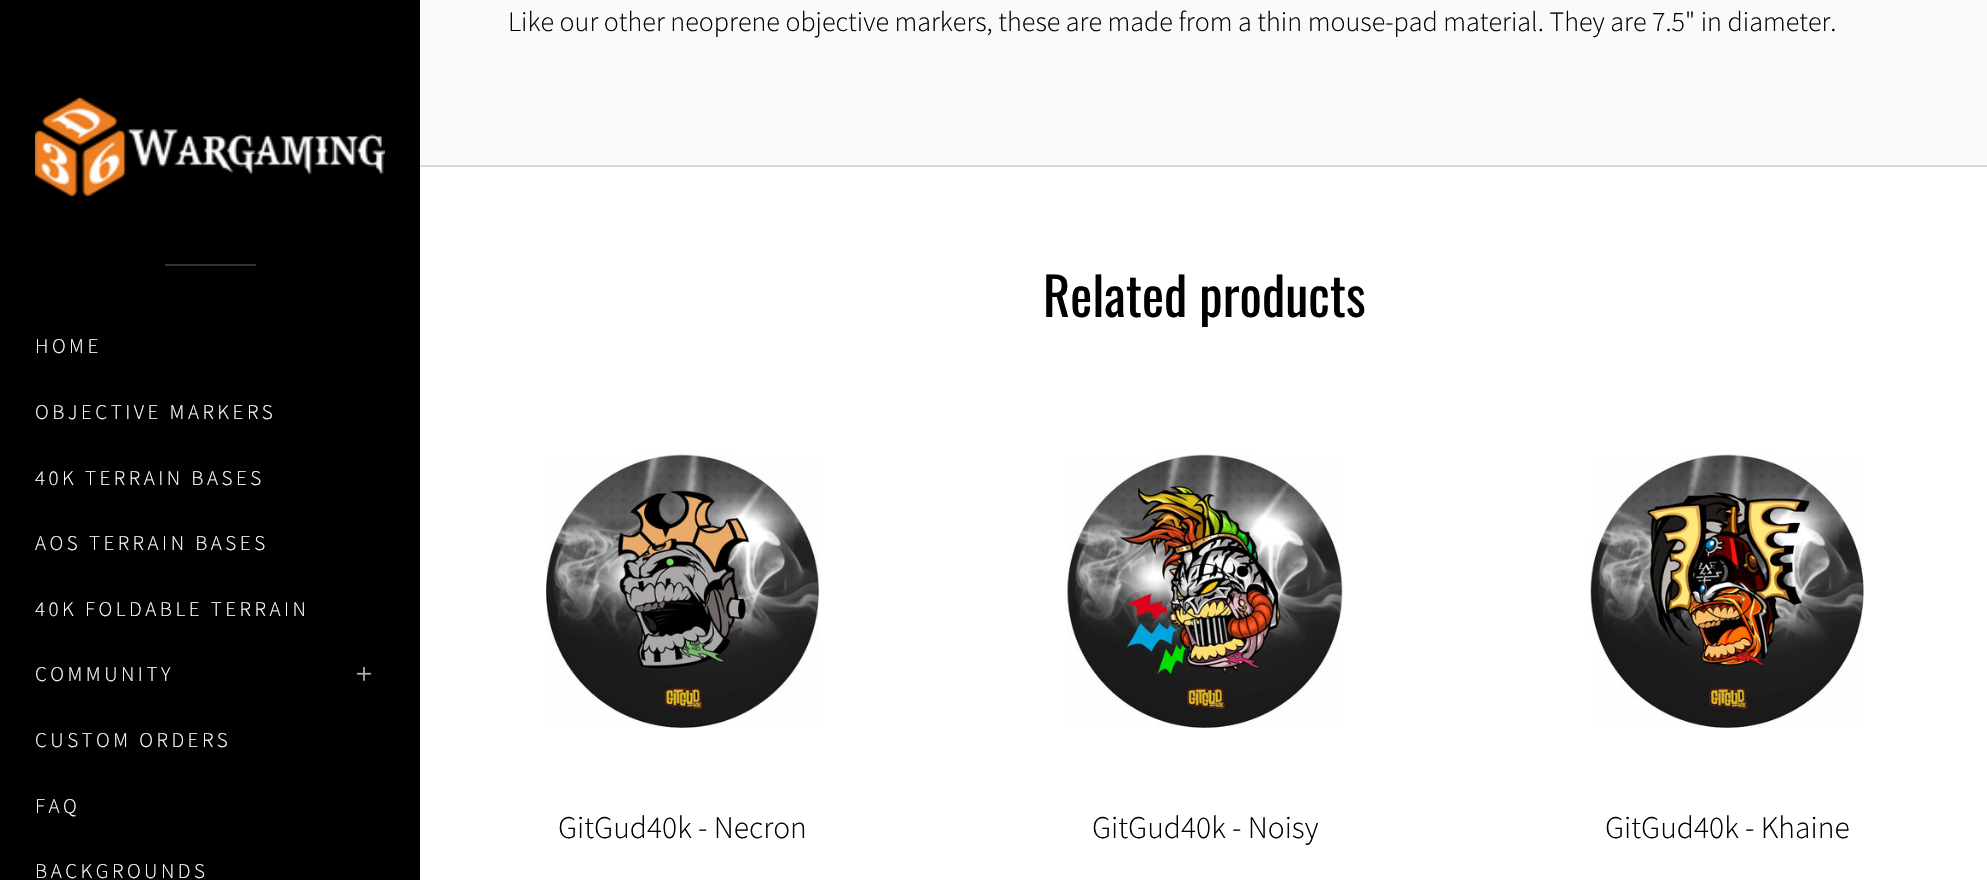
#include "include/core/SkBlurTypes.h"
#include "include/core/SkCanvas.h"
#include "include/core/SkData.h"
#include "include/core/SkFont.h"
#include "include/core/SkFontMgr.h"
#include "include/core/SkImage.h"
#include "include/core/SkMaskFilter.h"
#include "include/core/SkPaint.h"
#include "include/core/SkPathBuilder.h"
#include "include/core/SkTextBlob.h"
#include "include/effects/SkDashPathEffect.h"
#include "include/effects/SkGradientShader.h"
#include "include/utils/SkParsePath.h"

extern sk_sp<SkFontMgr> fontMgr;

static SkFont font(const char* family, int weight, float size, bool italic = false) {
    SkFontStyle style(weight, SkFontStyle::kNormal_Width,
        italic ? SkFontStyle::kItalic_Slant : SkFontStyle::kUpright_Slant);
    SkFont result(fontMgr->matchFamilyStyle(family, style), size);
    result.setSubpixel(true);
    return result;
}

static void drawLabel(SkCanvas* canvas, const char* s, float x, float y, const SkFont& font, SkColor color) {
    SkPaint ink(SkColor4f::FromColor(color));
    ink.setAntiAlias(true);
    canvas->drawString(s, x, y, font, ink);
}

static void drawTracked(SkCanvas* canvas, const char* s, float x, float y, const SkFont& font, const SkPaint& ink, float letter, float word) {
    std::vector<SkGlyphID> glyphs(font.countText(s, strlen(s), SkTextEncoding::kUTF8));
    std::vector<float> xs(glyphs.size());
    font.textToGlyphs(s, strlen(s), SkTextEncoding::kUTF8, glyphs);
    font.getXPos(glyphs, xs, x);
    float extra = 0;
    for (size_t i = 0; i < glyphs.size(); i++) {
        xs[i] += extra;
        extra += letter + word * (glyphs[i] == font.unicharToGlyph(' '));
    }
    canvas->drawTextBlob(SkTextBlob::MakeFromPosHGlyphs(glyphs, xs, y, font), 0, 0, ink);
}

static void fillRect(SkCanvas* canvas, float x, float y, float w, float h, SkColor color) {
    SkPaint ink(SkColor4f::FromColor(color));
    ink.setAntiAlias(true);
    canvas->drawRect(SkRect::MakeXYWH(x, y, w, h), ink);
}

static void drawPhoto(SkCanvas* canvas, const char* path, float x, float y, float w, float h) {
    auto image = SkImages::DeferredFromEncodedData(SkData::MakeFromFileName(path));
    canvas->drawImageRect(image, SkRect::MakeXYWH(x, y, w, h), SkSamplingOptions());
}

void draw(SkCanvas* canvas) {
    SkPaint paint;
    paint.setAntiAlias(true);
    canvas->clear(0xFFFFFFFF);
    fillRect(canvas, 0, 0, 420, 880, 0xFF000000);
    drawPhoto(canvas, "assets/img1.png", 35, 98, 350, 98);
    fillRect(canvas, 165, 264, 91, 2, 0xFF333333);
    SkFont font1 = font("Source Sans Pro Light", 300, 21);
    paint.setColor(0xFFFFFFFF);
    drawTracked(canvas, "HOME", 35, 353, font1, paint, 3.5f, 0);
    drawTracked(canvas, "OBJECTIVE MARKERS", 35, 419, font1, paint, 3.5f, 0);
    drawTracked(canvas, "40K TERRAIN BASES", 35, 485, font1, paint, 3.5f, 0);
    drawTracked(canvas, "AOS TERRAIN BASES", 35, 550, font1, paint, 3.5f, 0);
    drawTracked(canvas, "40K FOLDABLE TERRAIN", 35, 616, font1, paint, 3.5f, 0);
    drawTracked(canvas, "COMMUNITY", 35, 681, font1, paint, 3.5f, 0);
    drawPhoto(canvas, "assets/img2.png", 357, 667, 14, 14);
    drawTracked(canvas, "CUSTOM ORDERS", 35, 747, font1, paint, 3.5f, 0);
    drawTracked(canvas, "FAQ", 35, 813, font1, paint, 3.5f, 0);
    drawTracked(canvas, "BACKGROUNDS", 35, 878, font1, paint, 3.5f, 0);
    fillRect(canvas, 420, 0, 1567, 165, 0xFFFAFAFA);
    fillRect(canvas, 420, 165, 1567, 2, 0xFFD9D9D9);
    SkFont font2 = font("Source Sans Pro Light", 300, 28);
    drawLabel(canvas, "Like our other neoprene objective markers, these are made from a thin mouse-pad material. They are 7.5\" in diameter.", 508, 31, font2, 0xFF000000);
    SkFont font3 = font("Oswald", 400, 52.5f);
    drawLabel(canvas, "Related products", 1043, 317, font3, 0xFF000000);
    drawPhoto(canvas, "assets/img3.png", 546, 454, 273, 274);
    SkFont font4 = font("Source Sans Pro Light", 300, 31.5f);
    drawLabel(canvas, "GitGud40k - Necron", 558, 838, font4, 0xFF000000);
    drawPhoto(canvas, "assets/img4.png", 1067, 454, 276, 274);
    drawLabel(canvas, "GitGud40k - Noisy", 1092, 838, font4, 0xFF000000);
    drawPhoto(canvas, "assets/img5.png", 1590, 454, 274, 274);
    drawLabel(canvas, "GitGud40k - Khaine", 1605, 838, font4, 0xFF000000);
}
